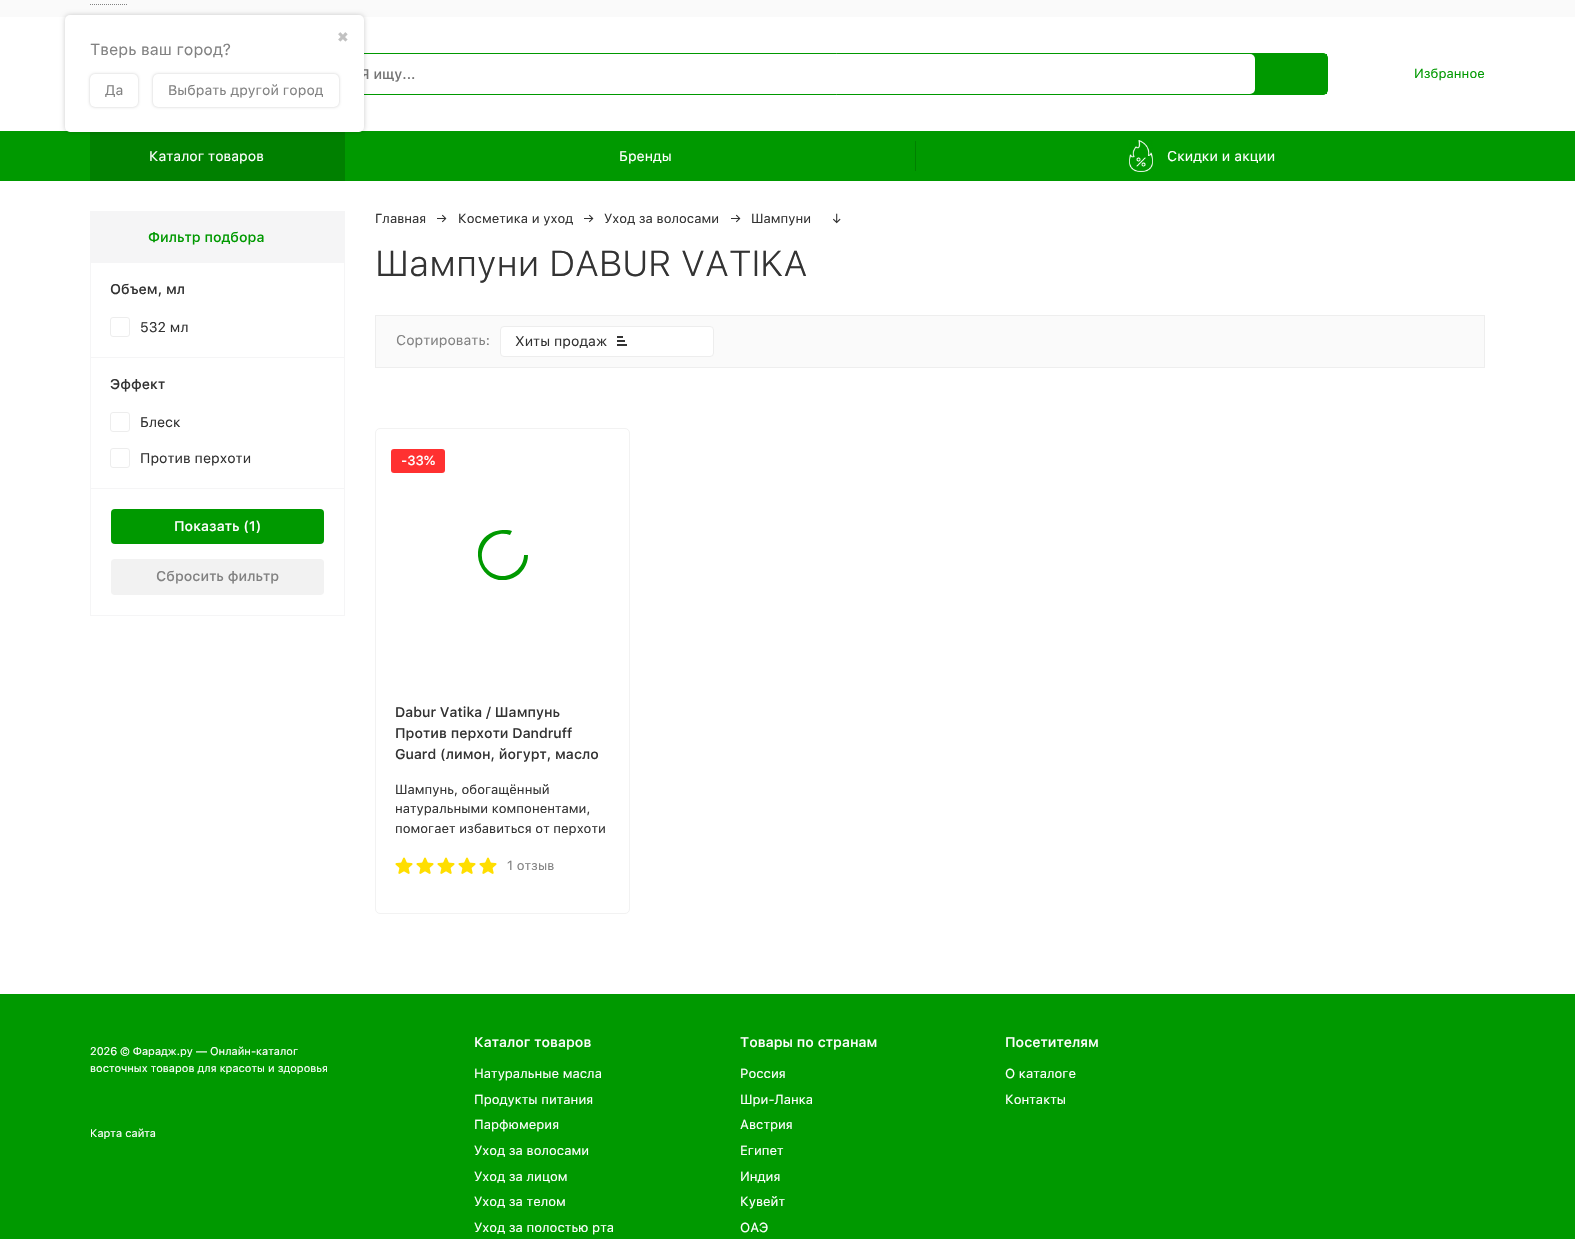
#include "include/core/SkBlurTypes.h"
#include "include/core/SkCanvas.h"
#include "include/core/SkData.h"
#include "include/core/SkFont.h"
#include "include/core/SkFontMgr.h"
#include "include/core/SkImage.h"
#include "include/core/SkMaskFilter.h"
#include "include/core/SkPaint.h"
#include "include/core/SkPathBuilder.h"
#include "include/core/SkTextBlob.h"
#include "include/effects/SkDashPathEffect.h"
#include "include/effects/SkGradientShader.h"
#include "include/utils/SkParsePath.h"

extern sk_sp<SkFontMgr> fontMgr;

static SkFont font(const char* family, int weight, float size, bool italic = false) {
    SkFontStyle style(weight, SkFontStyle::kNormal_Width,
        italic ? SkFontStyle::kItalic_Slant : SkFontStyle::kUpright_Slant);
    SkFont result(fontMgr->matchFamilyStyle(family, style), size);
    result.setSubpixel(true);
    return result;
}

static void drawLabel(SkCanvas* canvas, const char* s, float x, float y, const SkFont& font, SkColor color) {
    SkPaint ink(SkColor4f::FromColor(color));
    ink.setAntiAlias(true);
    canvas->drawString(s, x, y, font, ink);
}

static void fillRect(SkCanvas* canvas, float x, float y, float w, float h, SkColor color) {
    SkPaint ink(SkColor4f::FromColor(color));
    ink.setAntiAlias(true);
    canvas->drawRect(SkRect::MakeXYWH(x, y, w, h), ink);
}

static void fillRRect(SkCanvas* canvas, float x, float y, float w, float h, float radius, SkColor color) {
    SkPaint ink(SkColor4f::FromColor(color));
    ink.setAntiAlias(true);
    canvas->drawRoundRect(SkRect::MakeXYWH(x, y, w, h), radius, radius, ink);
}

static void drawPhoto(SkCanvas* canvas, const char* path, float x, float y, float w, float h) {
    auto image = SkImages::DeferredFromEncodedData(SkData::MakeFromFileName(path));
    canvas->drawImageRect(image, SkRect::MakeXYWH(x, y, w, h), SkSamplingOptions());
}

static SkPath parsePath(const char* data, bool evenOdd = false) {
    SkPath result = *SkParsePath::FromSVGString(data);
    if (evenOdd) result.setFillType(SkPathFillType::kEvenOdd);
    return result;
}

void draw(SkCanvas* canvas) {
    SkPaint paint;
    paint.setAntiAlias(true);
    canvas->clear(0xFFFFFFFF);
    fillRect(canvas, 0, 0, 1575, 17, 0xFFFAFAFA);
    paint.setStroke(true);
    paint.setStrokeWidth(1);
    paint.setColor(0xFF828282);
    paint.setPathEffect(SkDashPathEffect::Make({{1, 1}}, 0));
    canvas->drawPath(parsePath("M90 4.5H128"), paint);
    paint.setPathEffect(nullptr);
    paint.setStroke(false);
    paint.setColor(0xFF009900);
    canvas->drawRoundRect(SkRect::MakeXYWH(345.5f, 53.5f, 982, 41), 4.5f, 4.5f, paint);
    paint.setStroke(true);
    canvas->drawRoundRect(SkRect::MakeXYWH(345.5f, 53.5f, 982, 41), 4.5f, 4.5f, paint);
    fillRRect(canvas, 346, 54, 909, 40, 5, 0xFFFFFFFF);
    fillRect(canvas, 0, 131, 1575, 50, 0xFF009900);
    fillRect(canvas, 90, 132, 255, 49, 0xFF008000);
    paint.setStroke(false);
    paint.setColor(0x33000000);
    paint.setMaskFilter(SkMaskFilter::MakeBlur(kNormal_SkBlurStyle, 2.5f));
    canvas->drawRoundRect(SkRect::MakeXYWH(65, 15, 299, 117), 5, 5, paint);
    paint.setMaskFilter(nullptr);
    SkFont font1 = font("SF Pro Text", 500, 14);
    drawLabel(canvas, "Я ищу...", 360, 79, font1, 0xFF757575);
    fillRRect(canvas, 65, 15, 299, 117, 5, 0xFFFFFFFF);
    SkFont font2 = font("DejaVu Sans", 400, 14);
    drawLabel(canvas, "✖", 337, 42, font2, 0xFFC1C1C1);
    SkFont font3 = font("SF Pro Text", 400, 16);
    drawLabel(canvas, "Тверь ваш город?", 90, 55, font3, 0xFF828282);
    paint.setMaskFilter(SkMaskFilter::MakeBlur(kNormal_SkBlurStyle, 1.5f));
    canvas->drawRoundRect(SkRect::MakeXYWH(90, 74, 48, 33), 5, 5, paint);
    paint.setMaskFilter(nullptr);
    fillRRect(canvas, 90, 74, 48, 33, 5, 0xFFFFFFFF);
    SkFont font4 = font("SF Pro Text", 400, 14);
    drawLabel(canvas, "Да", 105, 95, font4, 0xFF828282);
    paint.setMaskFilter(SkMaskFilter::MakeBlur(kNormal_SkBlurStyle, 1.5f));
    canvas->drawRoundRect(SkRect::MakeXYWH(153, 74, 186, 33), 5, 5, paint);
    paint.setMaskFilter(nullptr);
    fillRRect(canvas, 153, 74, 186, 33, 5, 0xFFFFFFFF);
    drawLabel(canvas, "Выбрать другой город", 168, 95, font4, 0xFF828282);
    fillRect(canvas, 1326, 54, 1, 40, 0xFF009900);
    SkFont font5 = font("SF Pro Text", 400, 13);
    drawLabel(canvas, "Избранное", 1414, 78, font5, 0xFF009900);
    drawLabel(canvas, "Каталог товаров", 149, 161, font4, 0xFFFFFFFF);
    drawLabel(canvas, "Бренды", 619, 161, font4, 0xFFFFFFFF);
    fillRect(canvas, 915, 141, 1, 30, 0xFF008000);
    drawPhoto(canvas, "assets/img1.png", 1129, 140, 24, 32);
    drawLabel(canvas, "Скидки и акции", 1167, 161, font4, 0xFFFFFFFF);
    fillRect(canvas, 90, 211, 255, 52, 0xFFF5F5F6);
    drawLabel(canvas, "Фильтр подбора", 148, 242, font1, 0xFF009900);
    fillRect(canvas, 344, 262, 1, 354, 0xFFF5F5F6);
    fillRect(canvas, 90, 615, 255, 1, 0xFFF5F5F6);
    fillRect(canvas, 90, 262, 1, 354, 0xFFF5F5F6);
    fillRect(canvas, 91, 357, 253, 1, 0xFFF5F5F6);
    drawLabel(canvas, "Объем, мл", 110, 294, font1, 0xFF333333);
    paint.setStroke(true);
    paint.setColor(0xFFEDEDED);
    canvas->drawRoundRect(SkRect::MakeXYWH(110.5f, 317.5f, 19, 19), 2.5f, 2.5f, paint);
    drawLabel(canvas, "532 мл", 140, 332, font4, 0xFF333333);
    fillRect(canvas, 91, 488, 253, 1, 0xFFF5F5F6);
    drawLabel(canvas, "Эффект", 110, 389, font1, 0xFF333333);
    canvas->drawRoundRect(SkRect::MakeXYWH(110.5f, 412.5f, 19, 19), 2.5f, 2.5f, paint);
    drawLabel(canvas, "Блеск", 140, 427, font4, 0xFF333333);
    canvas->drawRoundRect(SkRect::MakeXYWH(110.5f, 448.5f, 19, 19), 2.5f, 2.5f, paint);
    drawLabel(canvas, "Против перхоти", 140, 463, font4, 0xFF333333);
    fillRRect(canvas, 111, 509, 213, 35, 4, 0xFF009900);
    drawLabel(canvas, "Показать (1)", 174, 531, font1, 0xFFFFFFFF);
    fillRRect(canvas, 111, 559, 213, 36, 4, 0xFFF2F2F2);
    drawLabel(canvas, "Сбросить фильтр", 156, 581, font1, 0xFF828282);
    drawLabel(canvas, "Главная", 375, 223, font5, 0xFF333333);
    drawLabel(canvas, "→", 436, 223, font5, 0xFF333333);
    drawLabel(canvas, "Косметика и уход", 458, 223, font5, 0xFF333333);
    drawLabel(canvas, "→", 583, 223, font5, 0xFF333333);
    drawLabel(canvas, "Уход за волосами", 604, 223, font5, 0xFF333333);
    drawLabel(canvas, "→", 730, 223, font5, 0xFF333333);
    drawLabel(canvas, "Шампуни", 751, 223, font5, 0xFF333333);
    drawLabel(canvas, "↓", 831, 223, font5, 0xFF333333);
    SkFont font6 = font("SF Pro Text", 300, 36);
    drawLabel(canvas, "Шампуни DABUR VATIKA", 375, 276, font6, 0xFF333333);
    paint.setStroke(false);
    paint.setColor(0xFFFAFAFA);
    canvas->drawRect(SkRect::MakeXYWH(375.5f, 315.5f, 1109, 52), paint);
    paint.setStroke(true);
    paint.setColor(0xFFEEEEEE);
    canvas->drawRect(SkRect::MakeXYWH(375.5f, 315.5f, 1109, 52), paint);
    drawLabel(canvas, "Сортировать:", 396, 345, font4, 0xFF828282);
    paint.setStroke(false);
    paint.setColor(0xFFFFFFFF);
    canvas->drawRoundRect(SkRect::MakeXYWH(500.5f, 326.5f, 213, 30), 3.5f, 3.5f, paint);
    paint.setStroke(true);
    paint.setColor(0xFFEDEDED);
    canvas->drawRoundRect(SkRect::MakeXYWH(500.5f, 326.5f, 213, 30), 3.5f, 3.5f, paint);
    drawLabel(canvas, "Хиты продаж", 515, 346, font4, 0xFF333333);
    drawPhoto(canvas, "assets/img2.png", 617, 336, 10, 10);
    paint.setColor(0xFFF2F2F2);
    canvas->drawRoundRect(SkRect::MakeXYWH(375.5f, 428.5f, 254, 485), 4.5f, 4.5f, paint);
    fillRRect(canvas, 391, 449, 54, 24, 3, 0xFFFF3131);
    SkFont font7 = font("SF Pro Text", 500, 13);
    drawLabel(canvas, "-33%", 401, 465, font7, 0xFFFFFFFF);
    canvas->save();
    canvas->clipRect(SkRect::MakeXYWH(478, 530, 50, 50));
    paint.setStroke(false);
    paint.setColor(0xFF009900);
    canvas->drawPath(parsePath("M503 576C498 576 492 574 488 570C472 554 490 528 510 535L512 531C506 529 499 530 493 532C463 545 482 591 513 578C522 574 528 565 528 555H524C524 566 514 576 503 576Z"), paint);
    canvas->restore();
    drawLabel(canvas, "Dabur Vatika / Шампунь", 395, 717, font1, 0xFF333333);
    drawLabel(canvas, "Против перхоти Dandruff", 395, 738, font1, 0xFF333333);
    drawLabel(canvas, "Guard (лимон, йогурт, масло", 395, 759, font1, 0xFF333333);
    drawLabel(canvas, "Шампунь, обогащённый", 395, 794, font5, 0xFF333333);
    drawLabel(canvas, "натуральными компонентами,", 395, 813, font5, 0xFF333333);
    drawLabel(canvas, "помогает избавиться от перхоти", 395, 833, font5, 0xFF333333);
    drawPhoto(canvas, "assets/img3.png", 395, 857, 18, 17);
    drawPhoto(canvas, "assets/img3.png", 416, 857, 18, 17);
    drawPhoto(canvas, "assets/img3.png", 437, 857, 18, 17);
    drawPhoto(canvas, "assets/img3.png", 458, 857, 18, 17);
    drawPhoto(canvas, "assets/img3.png", 479, 857, 18, 17);
    drawLabel(canvas, "1 отзыв", 507, 870, font5, 0xFF828282);
    fillRect(canvas, 0, 994, 1575, 245, 0xFF009900);
    SkFont font8 = font("SF Pro Text", 400, 11);
    drawLabel(canvas, "2026 © Фарадж.ру — Онлайн-каталог", 90, 1055, font8, 0xFFFFFFFF);
    drawLabel(canvas, "восточных товаров для красоты и здоровья", 90, 1072, font8, 0xFFFFFFFF);
    drawLabel(canvas, "Карта сайта", 90, 1137, font8, 0xFFFFFFFF);
    drawLabel(canvas, "Каталог товаров", 474, 1047, font1, 0xFFFFFFFF);
    drawLabel(canvas, "Натуральные масла", 474, 1078, font5, 0xFFFFFFFF);
    drawLabel(canvas, "Продукты питания", 474, 1104, font5, 0xFFFFFFFF);
    drawLabel(canvas, "Парфюмерия", 474, 1129, font5, 0xFFFFFFFF);
    drawLabel(canvas, "Уход за волосами", 474, 1155, font5, 0xFFFFFFFF);
    drawLabel(canvas, "Уход за лицом", 474, 1181, font5, 0xFFFFFFFF);
    drawLabel(canvas, "Уход за телом", 474, 1206, font5, 0xFFFFFFFF);
    drawLabel(canvas, "Уход за полостью рта", 474, 1232, font5, 0xFFFFFFFF);
    drawLabel(canvas, "Товары по странам", 740, 1047, font1, 0xFFFFFFFF);
    drawLabel(canvas, "Россия", 740, 1078, font5, 0xFFFFFFFF);
    drawLabel(canvas, "Шри-Ланка", 740, 1104, font5, 0xFFFFFFFF);
    drawLabel(canvas, "Австрия", 740, 1129, font5, 0xFFFFFFFF);
    drawLabel(canvas, "Египет", 740, 1155, font5, 0xFFFFFFFF);
    drawLabel(canvas, "Индия", 740, 1181, font5, 0xFFFFFFFF);
    drawLabel(canvas, "Кувейт", 740, 1206, font5, 0xFFFFFFFF);
    drawLabel(canvas, "ОАЭ", 740, 1232, font5, 0xFFFFFFFF);
    drawLabel(canvas, "Посетителям", 1005, 1047, font1, 0xFFFFFFFF);
    drawLabel(canvas, "О каталоге", 1005, 1078, font5, 0xFFFFFFFF);
    drawLabel(canvas, "Контакты", 1005, 1104, font5, 0xFFFFFFFF);
}
